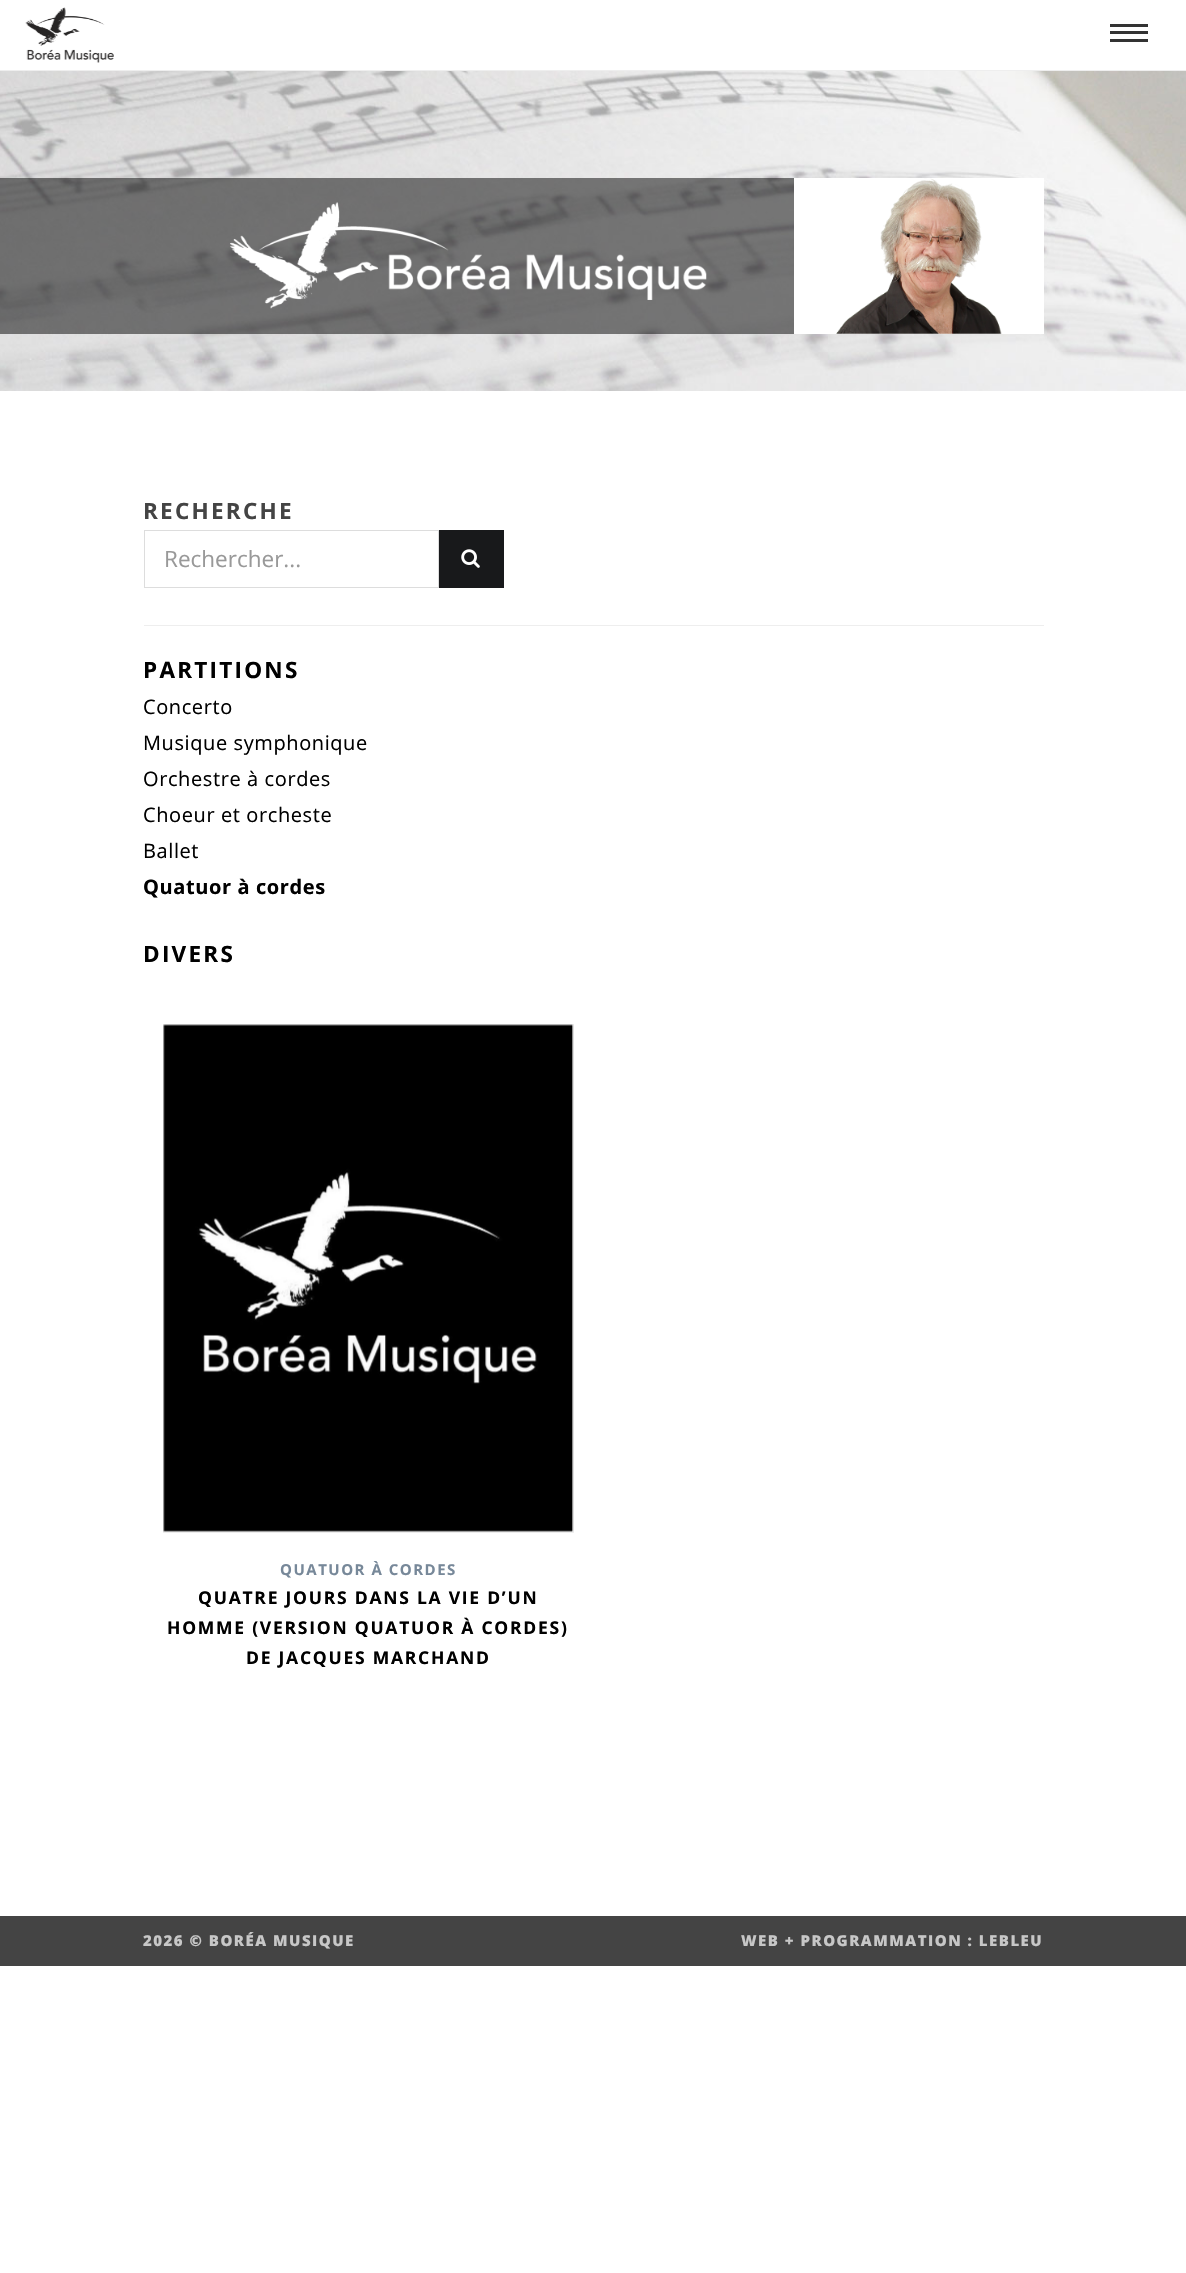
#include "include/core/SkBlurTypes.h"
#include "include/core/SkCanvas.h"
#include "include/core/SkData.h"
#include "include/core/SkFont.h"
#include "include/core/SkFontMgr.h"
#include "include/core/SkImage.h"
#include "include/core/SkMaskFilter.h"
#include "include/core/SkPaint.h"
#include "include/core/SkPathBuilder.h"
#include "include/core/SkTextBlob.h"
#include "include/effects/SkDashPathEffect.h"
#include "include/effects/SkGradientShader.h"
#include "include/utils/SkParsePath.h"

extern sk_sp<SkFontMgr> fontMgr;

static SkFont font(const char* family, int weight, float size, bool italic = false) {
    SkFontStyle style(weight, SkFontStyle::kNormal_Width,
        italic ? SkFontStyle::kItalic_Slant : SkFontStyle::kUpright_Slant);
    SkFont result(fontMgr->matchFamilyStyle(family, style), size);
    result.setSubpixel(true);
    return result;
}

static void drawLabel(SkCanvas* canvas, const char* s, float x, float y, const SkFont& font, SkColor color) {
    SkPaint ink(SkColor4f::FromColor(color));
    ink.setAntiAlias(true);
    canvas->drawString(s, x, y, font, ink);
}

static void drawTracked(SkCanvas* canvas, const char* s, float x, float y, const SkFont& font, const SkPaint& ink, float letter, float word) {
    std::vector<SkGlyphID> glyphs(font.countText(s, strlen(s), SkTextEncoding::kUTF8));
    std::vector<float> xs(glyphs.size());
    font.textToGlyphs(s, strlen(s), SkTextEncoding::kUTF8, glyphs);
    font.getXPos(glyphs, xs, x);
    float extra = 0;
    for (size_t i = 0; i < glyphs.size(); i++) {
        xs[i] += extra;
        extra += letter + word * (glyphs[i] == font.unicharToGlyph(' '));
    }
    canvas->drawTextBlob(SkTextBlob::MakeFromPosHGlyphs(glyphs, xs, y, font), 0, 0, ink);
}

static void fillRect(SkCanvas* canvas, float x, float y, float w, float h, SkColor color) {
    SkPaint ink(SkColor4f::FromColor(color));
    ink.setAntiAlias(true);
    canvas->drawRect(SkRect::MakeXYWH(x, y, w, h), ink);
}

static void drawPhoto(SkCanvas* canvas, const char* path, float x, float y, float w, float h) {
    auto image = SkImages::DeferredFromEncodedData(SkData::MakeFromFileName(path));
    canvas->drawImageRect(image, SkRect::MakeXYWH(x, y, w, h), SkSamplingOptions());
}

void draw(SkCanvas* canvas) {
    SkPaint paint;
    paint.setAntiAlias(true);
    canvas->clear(0xFFFFFFFF);
    fillRect(canvas, 0, 70, 1186, 1, 0xFFEEEEEE);
    drawPhoto(canvas, "assets/img1.png", 25, 7, 89, 56);
    fillRect(canvas, 1110, 24, 38, 3, 0xFF333333);
    fillRect(canvas, 1110, 31, 38, 3, 0xFF333333);
    fillRect(canvas, 1110, 39, 38, 3, 0xFF333333);
    drawPhoto(canvas, "assets/img2.png", 0, 71, 1186, 320);
    fillRect(canvas, 144, 178, 650, 156, 0x80000000);
    fillRect(canvas, 0, 178, 144, 156, 0x80000000);
    drawPhoto(canvas, "assets/img3.png", 230, 202, 477, 107);
    fillRect(canvas, 794, 178, 250, 156, 0xFFFFFFFF);
    drawPhoto(canvas, "assets/img4.png", 836, 178, 166, 156);
    SkFont font1 = font("Open Sans", 700, 22.5f);
    paint.setColor(0xFF444444);
    drawTracked(canvas, "RECHERCHE", 143, 519, font1, paint, 2.25f, 0);
    paint.setStroke(true);
    paint.setStrokeWidth(1);
    paint.setColor(0xFFDDDDDD);
    canvas->drawRect(SkRect::MakeXYWH(144.5f, 530.5f, 294, 57), paint);
    SkFont font2 = font("Open Sans", 400, 22.5f);
    drawLabel(canvas, "Rechercher...", 164, 567, font2, 0xFF999999);
    fillRect(canvas, 439, 530, 65, 58, 0xFF18191B);
    drawPhoto(canvas, "assets/img5.png", 461, 549, 19, 19);
    fillRect(canvas, 144, 625, 900, 1, 0xFFEEEEEE);
    paint.setStroke(false);
    paint.setColor(0xFF000000);
    drawTracked(canvas, "PARTITIONS", 143, 678, font1, paint, 2.25f, 0);
    SkFont font3 = font("Open Sans", 400, 20);
    drawTracked(canvas, "Concerto", 143, 714, font3, paint, 0.6f, 0);
    drawTracked(canvas, "Musique symphonique", 143, 750, font3, paint, 0.6f, 0);
    drawTracked(canvas, "Orchestre à cordes", 143, 786, font3, paint, 0.6f, 0);
    drawTracked(canvas, "Choeur et orcheste", 143, 822, font3, paint, 0.6f, 0);
    drawTracked(canvas, "Ballet", 143, 858, font3, paint, 0.6f, 0);
    SkFont font4 = font("Open Sans", 700, 20);
    drawTracked(canvas, "Quatuor à cordes", 143, 894, font4, paint, 0.6f, 0);
    drawTracked(canvas, "DIVERS", 143, 962, font1, paint, 2.25f, 0);
    paint.setStroke(true);
    paint.setColor(0xFFEEEEEE);
    canvas->drawRect(SkRect::MakeXYWH(163.5f, 1024.5f, 410, 508), paint);
    drawPhoto(canvas, "assets/img6.png", 163, 1024, 411, 508);
    SkFont font5 = font("Open Sans", 700, 15);
    paint.setStroke(false);
    paint.setColor(0xFF778899);
    drawTracked(canvas, "QUATUOR À CORDES", 280, 1575, font5, paint, 1.5f, 0);
    SkFont font6 = font("Open Sans", 700, 17.5f);
    paint.setColor(0xFF000000);
    drawTracked(canvas, "QUATRE JOURS DANS LA VIE D’UN", 198, 1604, font6, paint, 1.75f, 0);
    drawTracked(canvas, "HOMME (VERSION QUATUOR À CORDES)", 167, 1634, font6, paint, 1.75f, 0);
    drawTracked(canvas, "DE JACQUES MARCHAND", 246, 1664, font6, paint, 1.75f, 0);
    fillRect(canvas, 0, 1916, 1186, 50, 0xFF444444);
    SkFont font7 = font("Open Sans", 800, 15);
    paint.setColor(0xFFC7C7C7);
    drawTracked(canvas, "2026 © BORÉA MUSIQUE", 143, 1946, font7, paint, 1.5f, 0);
    drawTracked(canvas, "WEB + PROGRAMMATION : LEBLEU", 741, 1946, font7, paint, 1.5f, 0);
}
